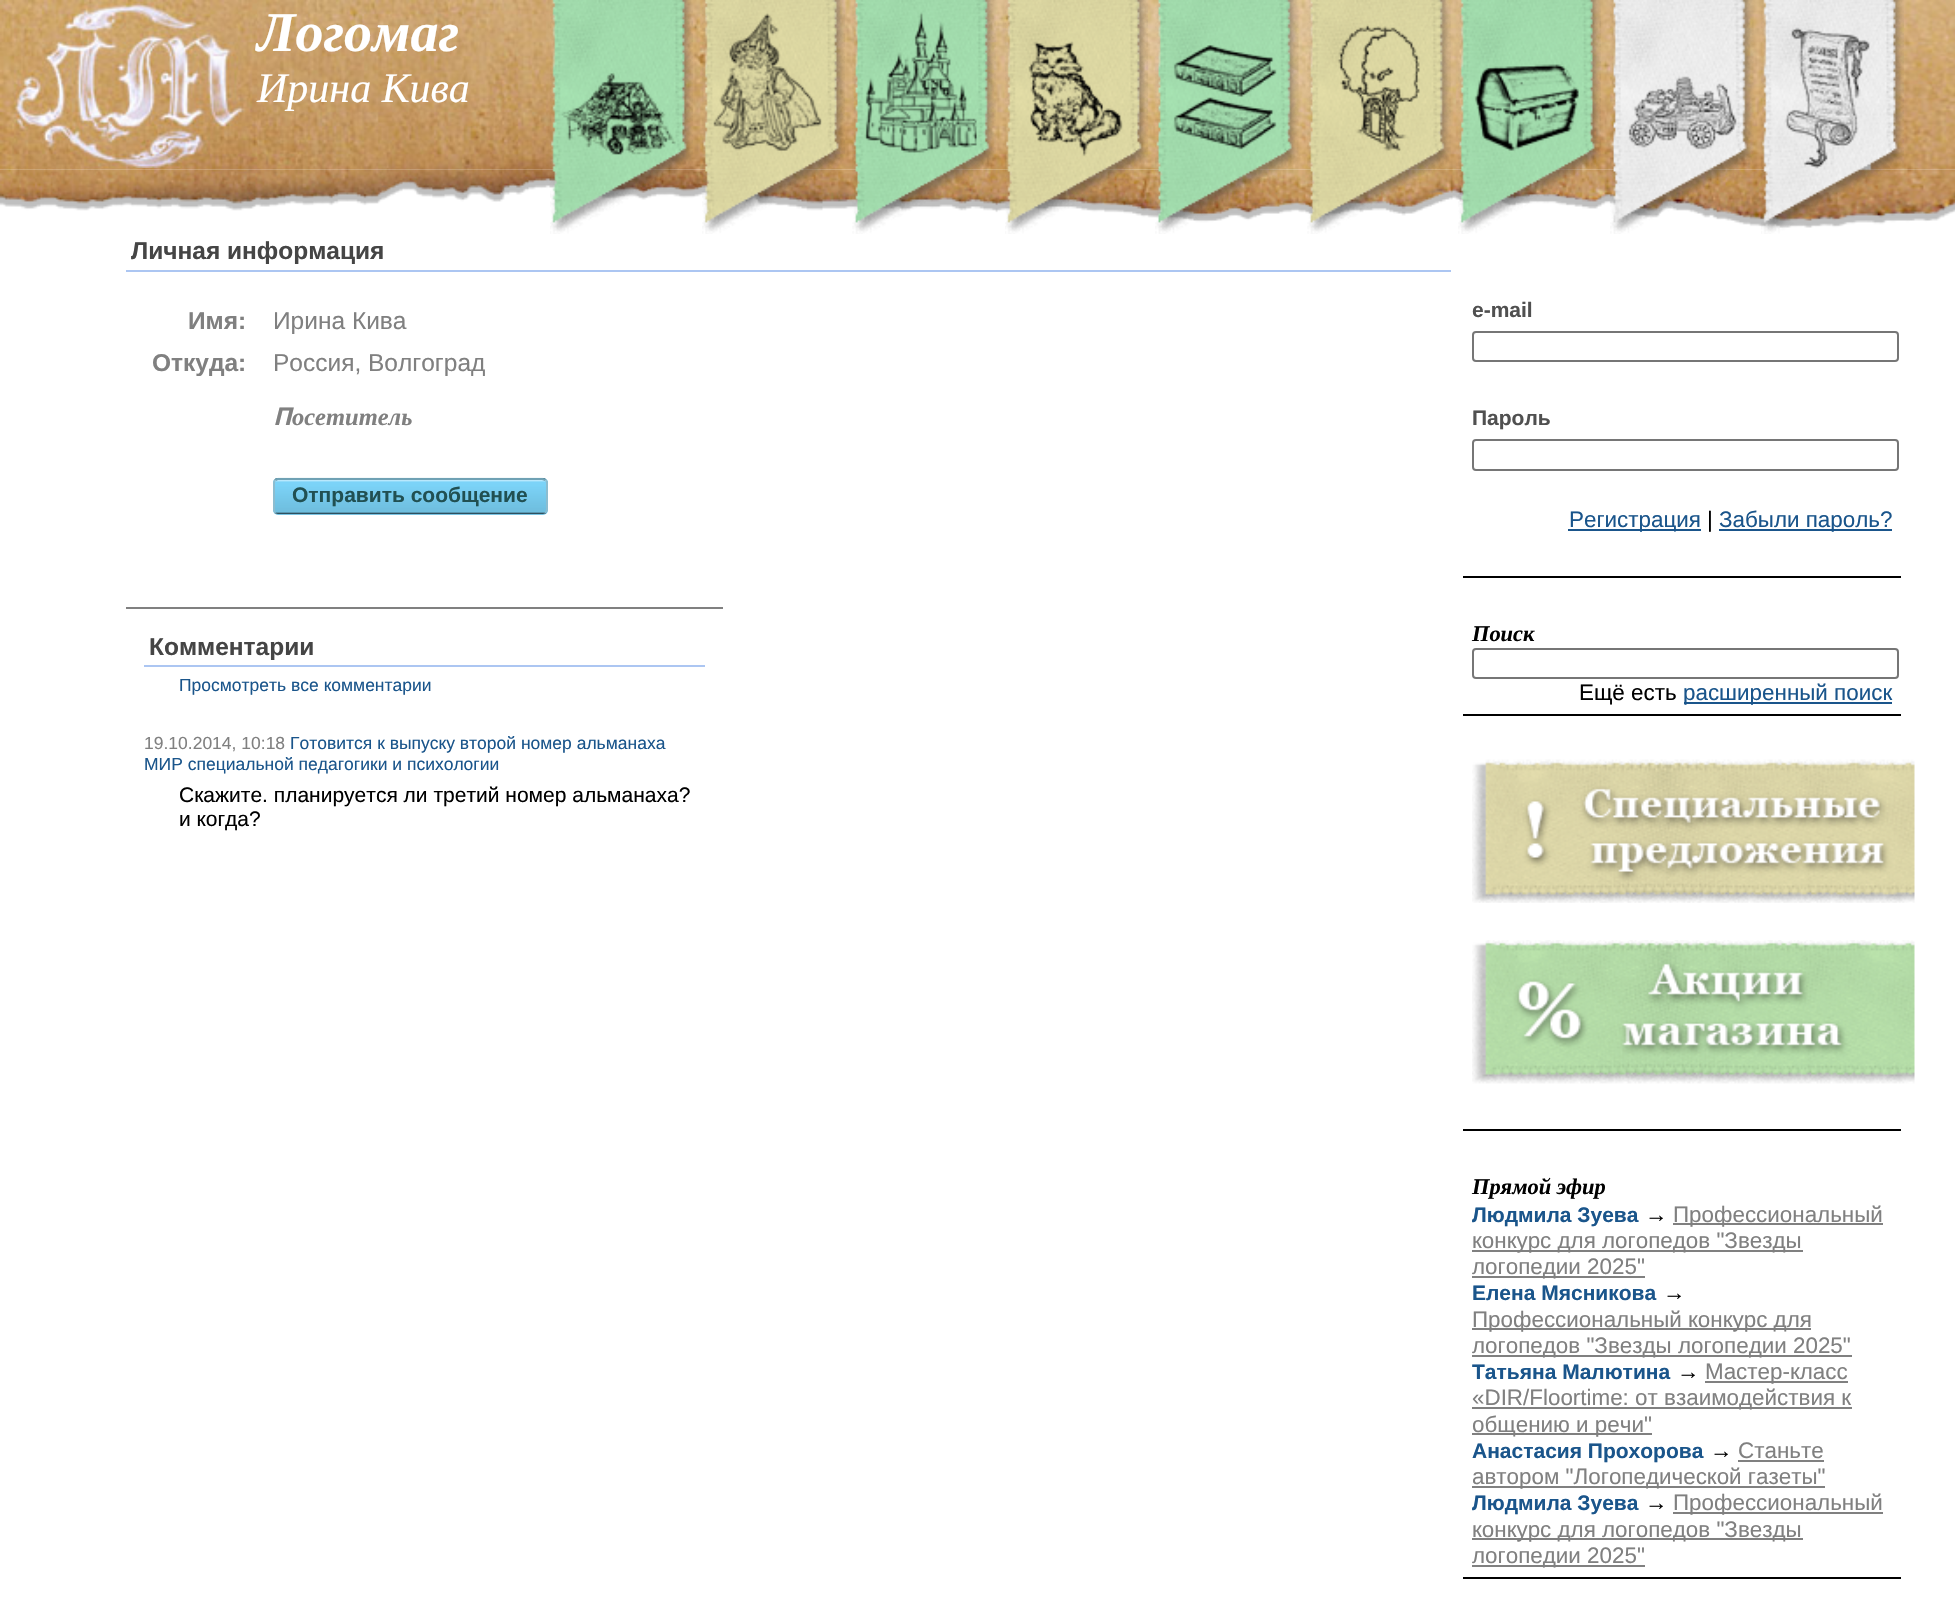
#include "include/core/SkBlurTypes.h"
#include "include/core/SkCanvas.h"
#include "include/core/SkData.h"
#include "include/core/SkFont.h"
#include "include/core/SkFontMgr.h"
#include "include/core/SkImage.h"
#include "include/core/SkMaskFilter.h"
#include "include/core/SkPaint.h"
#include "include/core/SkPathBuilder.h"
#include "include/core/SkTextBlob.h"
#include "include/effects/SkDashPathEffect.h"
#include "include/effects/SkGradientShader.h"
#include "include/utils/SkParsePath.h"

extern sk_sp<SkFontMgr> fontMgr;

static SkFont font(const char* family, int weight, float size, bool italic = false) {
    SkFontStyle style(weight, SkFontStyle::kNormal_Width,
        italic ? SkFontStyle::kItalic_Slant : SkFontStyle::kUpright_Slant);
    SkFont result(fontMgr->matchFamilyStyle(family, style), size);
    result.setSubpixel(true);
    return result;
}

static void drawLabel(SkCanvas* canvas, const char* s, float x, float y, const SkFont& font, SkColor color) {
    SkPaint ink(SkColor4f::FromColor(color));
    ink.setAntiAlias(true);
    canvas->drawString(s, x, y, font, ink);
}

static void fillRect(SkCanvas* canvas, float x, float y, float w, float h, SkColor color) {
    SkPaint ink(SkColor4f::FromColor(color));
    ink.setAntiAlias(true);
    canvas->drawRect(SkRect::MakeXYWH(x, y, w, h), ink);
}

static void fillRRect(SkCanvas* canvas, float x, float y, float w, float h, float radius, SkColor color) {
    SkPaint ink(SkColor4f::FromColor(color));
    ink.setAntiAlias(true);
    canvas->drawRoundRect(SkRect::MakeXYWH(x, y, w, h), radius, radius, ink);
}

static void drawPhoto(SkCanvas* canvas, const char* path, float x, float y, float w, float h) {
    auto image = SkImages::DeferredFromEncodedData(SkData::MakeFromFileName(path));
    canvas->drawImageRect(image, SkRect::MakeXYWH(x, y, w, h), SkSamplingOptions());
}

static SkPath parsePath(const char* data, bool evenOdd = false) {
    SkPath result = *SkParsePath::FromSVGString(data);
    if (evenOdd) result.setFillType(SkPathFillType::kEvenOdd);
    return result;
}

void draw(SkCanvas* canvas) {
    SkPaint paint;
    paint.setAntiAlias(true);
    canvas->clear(0xFFFFFFFF);
    drawPhoto(canvas, "assets/img12.png", 0, 169, 1955, 59);
    drawPhoto(canvas, "assets/img1.png", 0, 0, 1955, 170);
    drawPhoto(canvas, "assets/img2.png", 0, 0, 258, 168);
    SkFont font1 = font("Liberation Serif", 700, 56, true);
    drawLabel(canvas, "Логомаг", 257, 51, font1, 0xFFFFFFFF);
    SkFont font2 = font("Liberation Serif", 400, 42, true);
    drawLabel(canvas, "Ирина Кива", 257, 102, font2, 0xFFFFFFFF);
    drawPhoto(canvas, "assets/img3.png", 550, 0, 143, 234);
    drawPhoto(canvas, "assets/img4.png", 702, 0, 143, 234);
    drawPhoto(canvas, "assets/img5.png", 852, 0, 144, 234);
    drawPhoto(canvas, "assets/img6.png", 1005, 0, 143, 234);
    drawPhoto(canvas, "assets/img7.png", 1155, 0, 144, 234);
    drawPhoto(canvas, "assets/img8.png", 1307, 0, 144, 234);
    drawPhoto(canvas, "assets/img9.png", 1458, 0, 143, 234);
    drawPhoto(canvas, "assets/img10.png", 1610, 0, 144, 234);
    drawPhoto(canvas, "assets/img11.png", 1761, 0, 143, 234);
    fillRect(canvas, 126, 270, 1325, 2, 0xFFACC6F2);
    SkFont font3 = font("Liberation Sans", 700, 24.5f);
    drawLabel(canvas, "Личная информация", 131, 259, font3, 0xFF454545);
    drawLabel(canvas, "Имя:", 188, 329, font3, 0xFF808080);
    SkFont font4 = font("Liberation Sans", 400, 24.5f);
    drawLabel(canvas, "Ирина Кива", 273, 329, font4, 0xFF808080);
    drawLabel(canvas, "Откуда:", 152, 371, font3, 0xFF808080);
    drawLabel(canvas, "Россия, Волгоград", 273, 371, font4, 0xFF808080);
    SkFont font5 = font("Noto Sans", 700, 24.5f, true);
    drawLabel(canvas, "П", 273, 425, font5, 0xFF808080);
    SkFont font6 = font("Liberation Serif", 700, 24.5f, true);
    drawLabel(canvas, "осетитель", 292, 425, font6, 0xFF808080);
    fillRRect(canvas, 273, 478, 275, 37, 5, 0xFF7CD3F8);
    drawPhoto(canvas, "assets/img13.png", 273, 477, 275, 38);
    paint.setColor(0xFF6FA1B4);
    canvas->drawPath(parsePath("M278 478H543L546 479L545 481L542 480H278L276 481L275 479C275 478 277 478 278 478Z"), paint);
    paint.setColor(0xFF8CBDD0);
    canvas->drawPath(parsePath("M546 479.5C547 480 547.5 480.5 548 481.5V510.5C547 512.5 544.5 514 542 514C544 514 546 512 546 509V483C546 482 545.5 481 545 481Z"), paint);
    canvas->drawPath(parsePath("M274.5 479.5L276 480.5C275.5 481 275 482 275 483V509C275 512 276 514 278 514C275 514 273 512 273 509V483C273 481.5 273.5 480 274.5 479.5Z"), paint);
    SkFont font7 = font("Liberation Sans", 700, 21);
    drawLabel(canvas, "Отправить сообщение", 292, 502, font7, 0xFF215052);
    fillRect(canvas, 126, 607, 597, 2, 0xFF808080);
    fillRect(canvas, 144, 665, 561, 2, 0xFFACC6F2);
    drawLabel(canvas, "Комментарии", 149, 655, font3, 0xFF454545);
    SkFont font8 = font("Liberation Sans", 400, 17.5f);
    drawLabel(canvas, "Просмотреть все комментарии", 179, 691, font8, 0xFF1A558B);
    drawLabel(canvas, "19.10.2014, 10:18", 144, 749, font8, 0xFF808080);
    drawLabel(canvas, "Готовится к выпуску второй номер альманаха", 290, 749, font8, 0xFF1A558B);
    drawLabel(canvas, "МИР специальной педагогики и психологии", 144, 770, font8, 0xFF1A558B);
    SkFont font9 = font("Liberation Sans", 400, 21);
    drawLabel(canvas, "Скажите. планируется ли третий номер альманаха?", 179, 802, font9, 0xFF000000);
    drawLabel(canvas, "и когда?", 179, 826, font9, 0xFF000000);
    fillRect(canvas, 1463, 576, 438, 2, 0xFF000000);
    drawLabel(canvas, "e-mail", 1472, 317, font7, 0xFF505050);
    paint.setStroke(true);
    paint.setStrokeWidth(2);
    paint.setColor(0xFF767676);
    canvas->drawRoundRect(SkRect::MakeXYWH(1473, 332, 425, 29), 3, 3, paint);
    drawLabel(canvas, "Пароль", 1472, 425, font7, 0xFF505050);
    canvas->drawRoundRect(SkRect::MakeXYWH(1473, 440, 425, 30), 3, 3, paint);
    fillRect(canvas, 1568, 529, 133, 2, 0xFF1A558B);
    SkFont font10 = font("Liberation Sans", 400, 22.4f);
    drawLabel(canvas, "Регистрация", 1569, 527, font10, 0xFF1A558B);
    drawLabel(canvas, "|", 1707, 527, font10, 0xFF000000);
    fillRect(canvas, 1719, 529, 173, 2, 0xFF1A558B);
    drawLabel(canvas, "Забыли пароль?", 1719, 527, font10, 0xFF1A558B);
    fillRect(canvas, 1463, 714, 438, 2, 0xFF000000);
    SkFont font11 = font("Liberation Serif", 700, 22.4f, true);
    drawLabel(canvas, "Поиск", 1472, 641, font11, 0xFF000000);
    canvas->drawRoundRect(SkRect::MakeXYWH(1473, 649, 425, 29), 3, 3, paint);
    drawLabel(canvas, "Ещё есть", 1579, 700, font10, 0xFF000000);
    fillRect(canvas, 1684, 702, 208, 2, 0xFF1A558B);
    drawLabel(canvas, "расширенный поиск", 1683, 700, font10, 0xFF1A558B);
    fillRect(canvas, 1463, 1129, 438, 2, 0xFF000000);
    drawPhoto(canvas, "assets/img14.png", 1472, 759, 443, 144);
    drawPhoto(canvas, "assets/img15.png", 1472, 940, 443, 144);
    fillRect(canvas, 1463, 1577, 438, 2, 0xFF000000);
    drawLabel(canvas, "Прямой эфир", 1472, 1194, font11, 0xFF000000);
    drawLabel(canvas, "Людмила Зуева", 1472, 1222, font7, 0xFF1A558B);
    drawLabel(canvas, "→", 1645, 1222, font10, 0xFF000000);
    fillRect(canvas, 1673, 1223, 210, 2, 0xFF808080);
    drawLabel(canvas, "Профессиональный", 1673, 1222, font10, 0xFF808080);
    fillRect(canvas, 1472, 1250, 331, 2, 0xFF808080);
    drawLabel(canvas, "конкурс для логопедов \"Звезды", 1472, 1248, font10, 0xFF808080);
    fillRect(canvas, 1472, 1276, 173, 2, 0xFF808080);
    drawLabel(canvas, "логопедии 2025\"", 1472, 1274, font10, 0xFF808080);
    drawLabel(canvas, "Елена Мясникова", 1472, 1300, font7, 0xFF1A558B);
    drawLabel(canvas, "→", 1663, 1300, font10, 0xFF000000);
    fillRect(canvas, 1472, 1328, 339, 2, 0xFF808080);
    drawLabel(canvas, "Профессиональный конкурс для", 1472, 1327, font10, 0xFF808080);
    fillRect(canvas, 1472, 1355, 380, 2, 0xFF808080);
    drawLabel(canvas, "логопедов \"Звезды логопедии 2025\"", 1472, 1353, font10, 0xFF808080);
    drawLabel(canvas, "Татьяна Малютина", 1472, 1379, font7, 0xFF1A558B);
    drawLabel(canvas, "→", 1677, 1379, font10, 0xFF000000);
    fillRect(canvas, 1705, 1381, 143, 2, 0xFF808080);
    drawLabel(canvas, "Мастер-класс", 1705, 1379, font10, 0xFF808080);
    fillRect(canvas, 1472, 1407, 380, 2, 0xFF808080);
    drawLabel(canvas, "«DIR/Floortime: от взаимодействия к", 1472, 1405, font10, 0xFF808080);
    fillRect(canvas, 1472, 1433, 180, 2, 0xFF808080);
    drawLabel(canvas, "общению и речи\"", 1472, 1432, font10, 0xFF808080);
    drawLabel(canvas, "Анастасия Прохорова", 1472, 1458, font7, 0xFF1A558B);
    drawLabel(canvas, "→", 1710, 1458, font10, 0xFF000000);
    drawLabel(canvas, "Станьте", 1738, 1458, font10, 0xFF808080);
    fillRect(canvas, 1738, 1460, 86, 2, 0xFF808080);
    fillRect(canvas, 1472, 1486, 353, 2, 0xFF808080);
    drawLabel(canvas, "автором \"Логопедической газеты\"", 1472, 1484, font10, 0xFF808080);
    drawLabel(canvas, "Людмила Зуева", 1472, 1510, font7, 0xFF1A558B);
    drawLabel(canvas, "→", 1645, 1510, font10, 0xFF000000);
    fillRect(canvas, 1673, 1512, 210, 2, 0xFF808080);
    drawLabel(canvas, "Профессиональный", 1673, 1510, font10, 0xFF808080);
    fillRect(canvas, 1472, 1538, 331, 2, 0xFF808080);
    drawLabel(canvas, "конкурс для логопедов \"Звезды", 1472, 1537, font10, 0xFF808080);
    fillRect(canvas, 1472, 1565, 173, 2, 0xFF808080);
    drawLabel(canvas, "логопедии 2025\"", 1472, 1563, font10, 0xFF808080);
}
